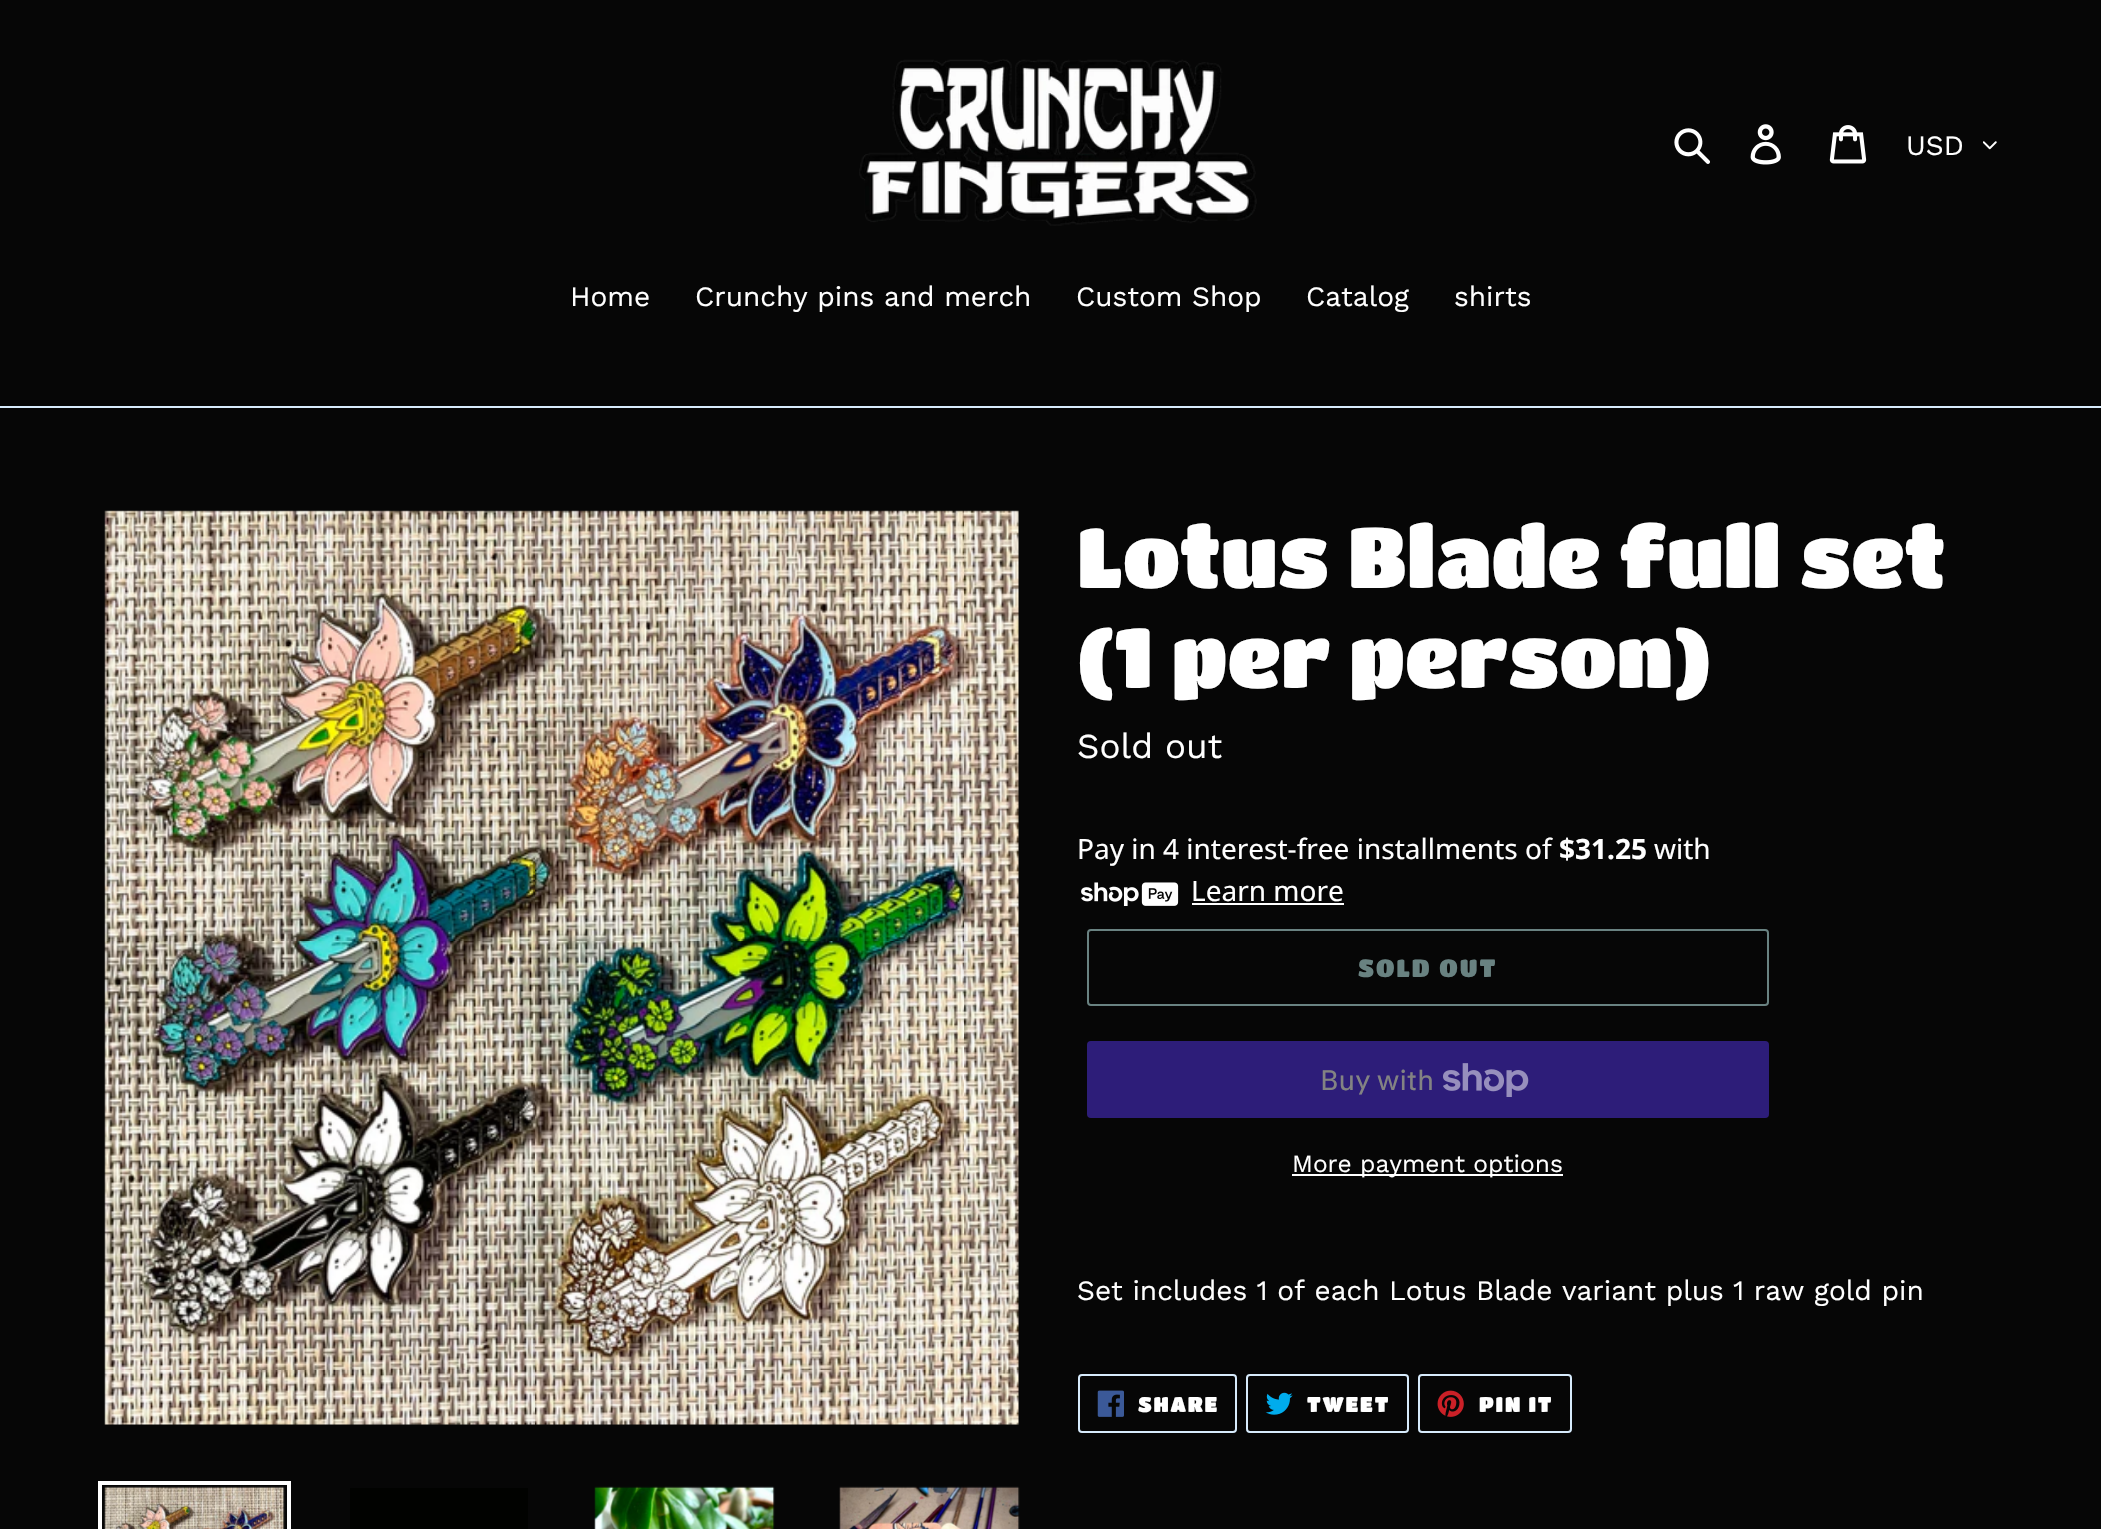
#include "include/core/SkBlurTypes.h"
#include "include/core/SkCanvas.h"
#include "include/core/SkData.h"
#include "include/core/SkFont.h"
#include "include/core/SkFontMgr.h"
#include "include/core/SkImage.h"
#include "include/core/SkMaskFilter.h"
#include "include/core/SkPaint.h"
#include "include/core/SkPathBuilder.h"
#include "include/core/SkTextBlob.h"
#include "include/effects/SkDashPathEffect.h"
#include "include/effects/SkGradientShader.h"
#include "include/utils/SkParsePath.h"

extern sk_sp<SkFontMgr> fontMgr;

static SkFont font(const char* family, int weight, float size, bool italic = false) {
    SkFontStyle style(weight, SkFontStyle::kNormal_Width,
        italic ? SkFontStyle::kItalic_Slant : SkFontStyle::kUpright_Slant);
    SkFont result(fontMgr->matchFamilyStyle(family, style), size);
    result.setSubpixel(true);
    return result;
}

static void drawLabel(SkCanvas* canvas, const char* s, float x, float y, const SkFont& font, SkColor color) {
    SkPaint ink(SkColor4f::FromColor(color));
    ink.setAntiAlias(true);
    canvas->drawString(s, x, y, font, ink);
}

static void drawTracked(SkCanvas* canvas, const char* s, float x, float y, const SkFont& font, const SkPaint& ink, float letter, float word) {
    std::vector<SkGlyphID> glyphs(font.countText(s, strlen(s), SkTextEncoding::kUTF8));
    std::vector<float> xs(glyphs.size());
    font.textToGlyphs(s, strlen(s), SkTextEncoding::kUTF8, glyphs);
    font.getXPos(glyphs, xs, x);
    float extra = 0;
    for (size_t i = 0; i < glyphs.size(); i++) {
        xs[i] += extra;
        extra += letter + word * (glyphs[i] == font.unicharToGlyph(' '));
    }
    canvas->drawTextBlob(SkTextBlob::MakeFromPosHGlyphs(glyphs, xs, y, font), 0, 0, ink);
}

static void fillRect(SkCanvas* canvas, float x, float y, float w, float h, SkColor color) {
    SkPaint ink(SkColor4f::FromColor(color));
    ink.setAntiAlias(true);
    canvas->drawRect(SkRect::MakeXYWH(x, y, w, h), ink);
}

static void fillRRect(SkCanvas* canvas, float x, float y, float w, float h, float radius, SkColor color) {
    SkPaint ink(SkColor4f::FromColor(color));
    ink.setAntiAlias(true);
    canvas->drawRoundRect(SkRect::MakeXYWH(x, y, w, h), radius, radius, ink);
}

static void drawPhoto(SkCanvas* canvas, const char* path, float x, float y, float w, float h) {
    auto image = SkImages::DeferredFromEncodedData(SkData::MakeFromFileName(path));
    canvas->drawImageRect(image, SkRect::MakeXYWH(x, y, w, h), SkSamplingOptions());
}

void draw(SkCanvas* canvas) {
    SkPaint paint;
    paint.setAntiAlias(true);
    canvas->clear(0xFF060606);
    drawPhoto(canvas, "assets/img1.png", 859, 59, 398, 167);
    drawPhoto(canvas, "assets/img2.png", 1674, 128, 36, 36);
    drawPhoto(canvas, "assets/img3.png", 1750, 124, 31, 41);
    drawPhoto(canvas, "assets/img4.png", 1829, 125, 38, 39);
    SkFont font1 = font("Work Sans", 400, 28);
    drawLabel(canvas, "USD", 1906, 155, font1, 0xFFFFFFFF);
    drawPhoto(canvas, "assets/img5.png", 1983, 141, 14, 9);
    fillRect(canvas, 0, 406, 2101, 2, 0xFFD7EBFC);
    drawLabel(canvas, "Home", 570, 306, font1, 0xFFFFFFFF);
    drawLabel(canvas, "Crunchy pins and merch", 695, 306, font1, 0xFFFFFFFF);
    drawLabel(canvas, "Custom Shop", 1076, 306, font1, 0xFFFFFFFF);
    drawLabel(canvas, "Catalog", 1306, 306, font1, 0xFFFFFFFF);
    drawLabel(canvas, "shirts", 1454, 306, font1, 0xFFFFFFFF);
    drawPhoto(canvas, "assets/img6.png", 104, 510, 915, 915);
    paint.setStroke(true);
    paint.setStrokeWidth(4);
    paint.setColor(0xFFFFFFFF);
    canvas->drawRect(SkRect::MakeXYWH(100, 1483, 189, 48), paint);
    drawPhoto(canvas, "assets/img7.png", 104, 1486, 181, 43);
    fillRect(canvas, 350, 1488, 178, 41, 0xFF010200);
    drawPhoto(canvas, "assets/img8.png", 594, 1486, 181, 43);
    drawPhoto(canvas, "assets/img9.png", 839, 1486, 181, 43);
    SkFont font2 = font("Titan One", 400, 84);
    drawLabel(canvas, "Lotus Blade full set", 1077, 588, font2, 0xFFFFFFFF);
    drawLabel(canvas, "(1 per person)", 1077, 688, font2, 0xFFFFFFFF);
    SkFont font3 = font("Work Sans", 400, 35);
    drawLabel(canvas, "Sold out", 1077, 758, font3, 0xFFFFFFFF);
    SkFont font4 = font("Noto Sans", 400, 28);
    drawLabel(canvas, "Pay in 4 interest-free installments of", 1077, 859, font4, 0xFFFFFFFF);
    SkFont font5 = font("Noto Sans", 700, 28);
    drawLabel(canvas, "$31.25", 1559, 859, font5, 0xFFFFFFFF);
    drawLabel(canvas, "with", 1654, 859, font4, 0xFFFFFFFF);
    drawPhoto(canvas, "assets/img10.png", 1081, 882, 98, 24);
    drawLabel(canvas, "Learn more", 1191, 901, font4, 0xFFFFFFFF);
    fillRect(canvas, 1192, 903, 152, 2, 0xFFFFFFFF);
    paint.setStrokeWidth(2);
    paint.setColor(0xFF698281);
    canvas->drawRoundRect(SkRect::MakeXYWH(1088, 930, 680, 75), 3, 3, paint);
    SkFont font6 = font("Titan One", 400, 24.5f);
    paint.setStroke(false);
    drawTracked(canvas, "SOLD OUT", 1358, 977, font6, paint, 2, 0);
    fillRRect(canvas, 1087, 1041, 682, 77, 4, 0xFF2D1D79);
    SkFont font7 = font("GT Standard", 400, 28);
    drawLabel(canvas, "Buy with", 1320, 1090, font7, 0xFF838383);
    drawPhoto(canvas, "assets/img11.png", 1443, 1063, 86, 34);
    fillRect(canvas, 1292, 1174, 271, 2, 0xFFFFFFFF);
    SkFont font8 = font("Work Sans", 400, 24.5f);
    drawLabel(canvas, "More payment options", 1292, 1172, font8, 0xFFFFFFFF);
    drawLabel(canvas, "Set includes 1 of each Lotus Blade variant plus 1 raw gold pin", 1077, 1300, font1, 0xFFFFFFFF);
    paint.setStroke(true);
    paint.setColor(0xFFD7EBFC);
    canvas->drawRoundRect(SkRect::MakeXYWH(1079, 1375, 157, 57), 3, 3, paint);
    drawPhoto(canvas, "assets/img12.png", 1097, 1390, 27, 27);
    SkFont font9 = font("Titan One", 400, 21);
    paint.setStroke(false);
    paint.setColor(0xFFFFFFFF);
    drawTracked(canvas, "SHARE", 1138, 1412, font9, paint, 1.75f, 0);
    paint.setStroke(true);
    paint.setColor(0xFFD7EBFC);
    canvas->drawRoundRect(SkRect::MakeXYWH(1247, 1375, 161, 57), 3, 3, paint);
    drawPhoto(canvas, "assets/img13.png", 1265, 1392, 28, 23);
    paint.setStroke(false);
    paint.setColor(0xFFFFFFFF);
    drawTracked(canvas, "TWEET", 1307, 1412, font9, paint, 1.75f, 0);
    paint.setStroke(true);
    paint.setColor(0xFFD7EBFC);
    canvas->drawRoundRect(SkRect::MakeXYWH(1419, 1375, 152, 57), 3, 3, paint);
    drawPhoto(canvas, "assets/img14.png", 1437, 1390, 27, 27);
    paint.setStroke(false);
    paint.setColor(0xFFFFFFFF);
    drawTracked(canvas, "PIN IT", 1479, 1412, font9, paint, 1.75f, 0);
}
